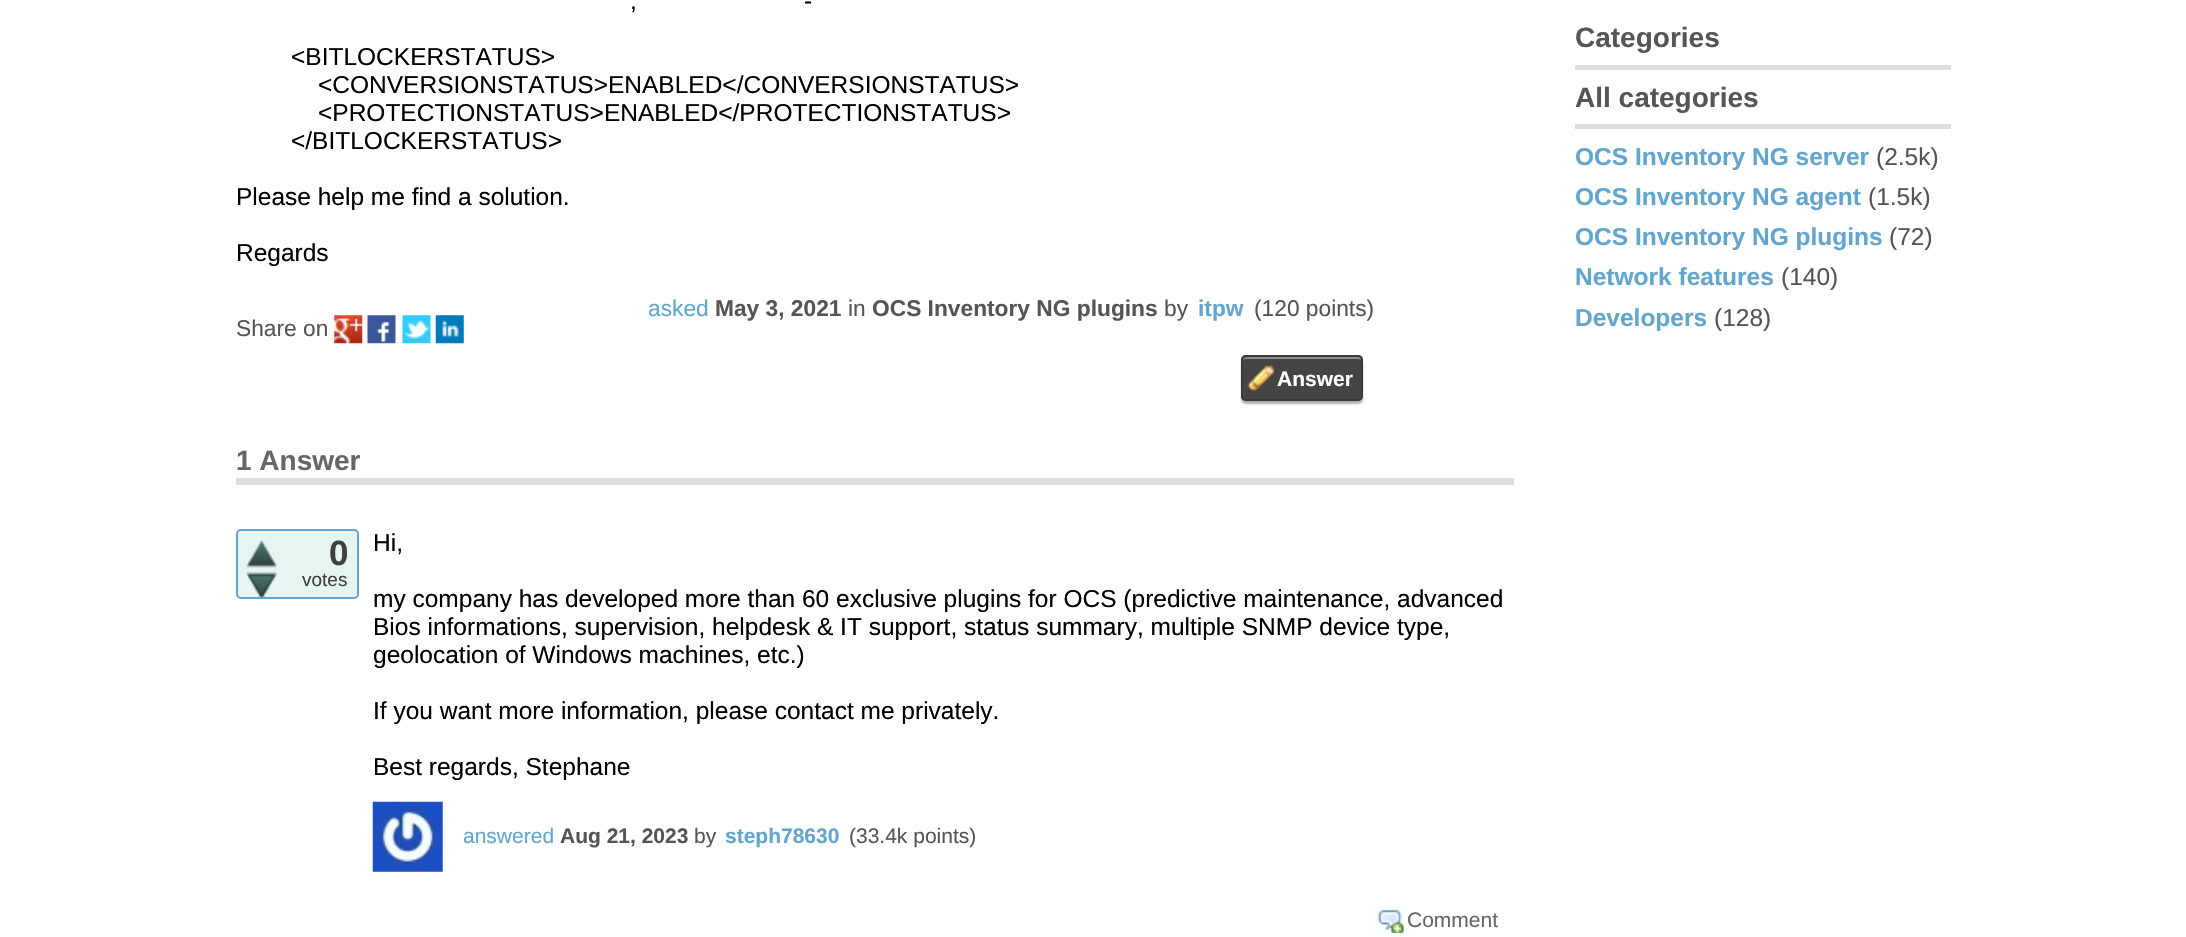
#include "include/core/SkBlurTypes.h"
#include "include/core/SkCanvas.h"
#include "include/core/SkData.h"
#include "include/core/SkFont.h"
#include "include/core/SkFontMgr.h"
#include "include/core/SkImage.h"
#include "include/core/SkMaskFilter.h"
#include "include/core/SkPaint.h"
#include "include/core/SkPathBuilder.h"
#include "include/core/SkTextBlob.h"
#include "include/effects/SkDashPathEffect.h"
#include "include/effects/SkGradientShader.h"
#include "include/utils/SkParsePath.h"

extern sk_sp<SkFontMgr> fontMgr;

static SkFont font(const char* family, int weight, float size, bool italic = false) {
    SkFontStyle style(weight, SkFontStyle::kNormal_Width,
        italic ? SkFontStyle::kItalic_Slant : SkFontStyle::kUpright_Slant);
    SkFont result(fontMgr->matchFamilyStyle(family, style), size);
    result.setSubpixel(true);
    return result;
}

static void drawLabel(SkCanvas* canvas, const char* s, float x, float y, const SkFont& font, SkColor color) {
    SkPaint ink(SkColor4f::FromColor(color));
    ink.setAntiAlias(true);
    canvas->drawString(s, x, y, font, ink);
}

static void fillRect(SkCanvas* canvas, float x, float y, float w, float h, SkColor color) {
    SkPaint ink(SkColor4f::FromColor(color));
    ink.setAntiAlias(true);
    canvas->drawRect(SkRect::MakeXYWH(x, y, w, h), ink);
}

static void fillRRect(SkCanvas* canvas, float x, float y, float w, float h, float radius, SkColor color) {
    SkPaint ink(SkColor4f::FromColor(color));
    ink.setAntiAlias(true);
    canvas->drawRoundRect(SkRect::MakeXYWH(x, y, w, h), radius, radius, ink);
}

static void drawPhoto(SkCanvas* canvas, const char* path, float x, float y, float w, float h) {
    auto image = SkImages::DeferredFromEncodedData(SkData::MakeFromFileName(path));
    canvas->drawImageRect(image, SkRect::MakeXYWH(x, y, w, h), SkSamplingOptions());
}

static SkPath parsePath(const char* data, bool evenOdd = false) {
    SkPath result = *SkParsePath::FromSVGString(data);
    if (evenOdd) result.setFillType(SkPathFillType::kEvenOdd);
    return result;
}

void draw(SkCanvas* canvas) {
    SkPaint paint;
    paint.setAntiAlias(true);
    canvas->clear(0xFFFFFFFF);
    SkFont font1 = font("Liberation Sans", 400, 24.5f);
    drawLabel(canvas, "-", 804, 9, font1, 0xFF000000);
    drawLabel(canvas, ",", 630, 9, font1, 0xFF000000);
    drawLabel(canvas, "<BITLOCKERSTATUS>", 291, 65, font1, 0xFF000000);
    drawLabel(canvas, "<CONVERSIONSTATUS>ENABLED</CONVERSIONSTATUS>", 318, 93, font1, 0xFF000000);
    drawLabel(canvas, "<PROTECTIONSTATUS>ENABLED</PROTECTIONSTATUS>", 318, 121, font1, 0xFF000000);
    drawLabel(canvas, "</BITLOCKERSTATUS>", 291, 149, font1, 0xFF000000);
    drawLabel(canvas, "Please help me find a solution.", 236, 205, font1, 0xFF000000);
    drawLabel(canvas, "Regards", 236, 261, font1, 0xFF000000);
    SkFont font2 = font("Liberation Sans", 400, 22.75f);
    drawLabel(canvas, "asked", 648, 316, font2, 0xFF62A5CE);
    SkFont font3 = font("Liberation Sans", 700, 22.75f);
    drawLabel(canvas, "May 3, 2021", 715, 316, font3, 0xFF555555);
    drawLabel(canvas, "in", 848, 316, font2, 0xFF555555);
    drawLabel(canvas, "OCS Inventory NG plugins", 872, 316, font3, 0xFF555555);
    drawLabel(canvas, "by", 1164, 316, font2, 0xFF555555);
    drawLabel(canvas, "itpw", 1198, 316, font3, 0xFF62A5CE);
    drawLabel(canvas, "(120 points)", 1254, 316, font2, 0xFF555555);
    drawLabel(canvas, "Share on", 236, 336, font2, 0xFF555555);
    drawPhoto(canvas, "assets/img1.png", 334, 315, 29, 29);
    drawPhoto(canvas, "assets/img2.png", 367, 315, 29, 29);
    drawPhoto(canvas, "assets/img3.png", 402, 315, 29, 29);
    drawPhoto(canvas, "assets/img4.png", 435, 315, 29, 29);
    paint.setColor(0x4D000000);
    paint.setMaskFilter(SkMaskFilter::MakeBlur(kNormal_SkBlurStyle, 1));
    canvas->drawRoundRect(SkRect::MakeXYWH(1241, 359, 122, 45), 5, 5, paint);
    paint.setMaskFilter(nullptr);
    fillRRect(canvas, 1241, 355, 122, 46, 5, 0xFF444444);
    drawPhoto(canvas, "assets/img5.png", 1247, 365, 27, 26);
    paint.setColor(0xFF8F8F8F);
    canvas->drawPath(parsePath("M1246 359H1358C1360 359 1362 360 1362 362V361C1362 359 1360 357 1358 357H1247C1245 357 1244 358 1243 360Z"), paint);
    paint.setStroke(true);
    paint.setStrokeWidth(2);
    paint.setColor(0xFF3A3A3A);
    canvas->drawRoundRect(SkRect::MakeXYWH(1242, 356, 120, 44), 4, 4, paint);
    SkFont font4 = font("Liberation Sans", 700, 21);
    drawLabel(canvas, "Answer", 1277, 386, font4, 0xFFFFFFFF);
    fillRect(canvas, 236, 478, 1278, 7, 0xFFDDDDDD);
    SkFont font5 = font("Liberation Sans", 700, 28);
    drawLabel(canvas, "1 Answer", 236, 470, font5, 0xFF666666);
    paint.setStroke(false);
    paint.setColor(0xFFE7F5F2);
    canvas->drawRoundRect(SkRect::MakeXYWH(237, 530, 121, 68), 4, 4, paint);
    paint.setStroke(true);
    paint.setColor(0xFF62A5CE);
    canvas->drawRoundRect(SkRect::MakeXYWH(237, 530, 121, 68), 4, 4, paint);
    drawPhoto(canvas, "assets/img6.png", 246, 541, 31, 27);
    drawPhoto(canvas, "assets/img7.png", 246, 572, 31, 25);
    SkFont font6 = font("Liberation Sans", 700, 35);
    drawLabel(canvas, "0", 329, 565, font6, 0xFF3F3F3F);
    SkFont font7 = font("Liberation Sans", 400, 19);
    drawLabel(canvas, "votes", 302, 586, font7, 0xFF3F3F3F);
    drawLabel(canvas, "Hi,", 373, 551, font1, 0xFF000000);
    drawLabel(canvas, "my company has developed more than 60 exclusive plugins for OCS (predictive maintenance, advanced", 373, 607, font1, 0xFF000000);
    drawLabel(canvas, "Bios informations, supervision, helpdesk & IT support, status summary, multiple SNMP device type,", 373, 635, font1, 0xFF000000);
    drawLabel(canvas, "geolocation of Windows machines, etc.)", 373, 663, font1, 0xFF000000);
    drawLabel(canvas, "If you want more information, please contact me privately.", 373, 719, font1, 0xFF000000);
    drawLabel(canvas, "Best regards, Stephane", 373, 775, font1, 0xFF000000);
    drawPhoto(canvas, "assets/img8.png", 372, 801, 71, 71);
    SkFont font8 = font("Liberation Sans", 400, 21);
    drawLabel(canvas, "answered", 463, 843, font8, 0xFF62A5CE);
    drawLabel(canvas, "Aug 21, 2023", 560, 843, font4, 0xFF555555);
    drawLabel(canvas, "by", 694, 843, font8, 0xFF555555);
    drawLabel(canvas, "steph78630", 725, 843, font4, 0xFF62A5CE);
    drawLabel(canvas, "(33.4k points)", 849, 843, font8, 0xFF555555);
    drawPhoto(canvas, "assets/img9.png", 1377, 909, 27, 24);
    drawLabel(canvas, "Comment", 1407, 927, font8, 0xFF666666);
    fillRect(canvas, 1575, 65, 376, 5, 0xFFDDDDDD);
    drawLabel(canvas, "Categories", 1575, 47, font5, 0xFF555555);
    fillRect(canvas, 1575, 124, 376, 5, 0xFFDDDDDD);
    drawLabel(canvas, "All categories", 1575, 107, font5, 0xFF555555);
    SkFont font9 = font("Liberation Sans", 700, 24.5f);
    drawLabel(canvas, "OCS Inventory NG server", 1575, 165, font9, 0xFF62A5CE);
    drawLabel(canvas, "(2.5k)", 1876, 165, font1, 0xFF555555);
    drawLabel(canvas, "OCS Inventory NG agent", 1575, 205, font9, 0xFF62A5CE);
    drawLabel(canvas, "(1.5k)", 1868, 205, font1, 0xFF555555);
    drawLabel(canvas, "OCS Inventory NG plugins", 1575, 245, font9, 0xFF62A5CE);
    drawLabel(canvas, "(72)", 1889, 245, font1, 0xFF555555);
    drawLabel(canvas, "Network features", 1575, 285, font9, 0xFF62A5CE);
    drawLabel(canvas, "(140)", 1781, 285, font1, 0xFF555555);
    drawLabel(canvas, "Developers", 1575, 326, font9, 0xFF62A5CE);
    drawLabel(canvas, "(128)", 1714, 326, font1, 0xFF555555);
}
